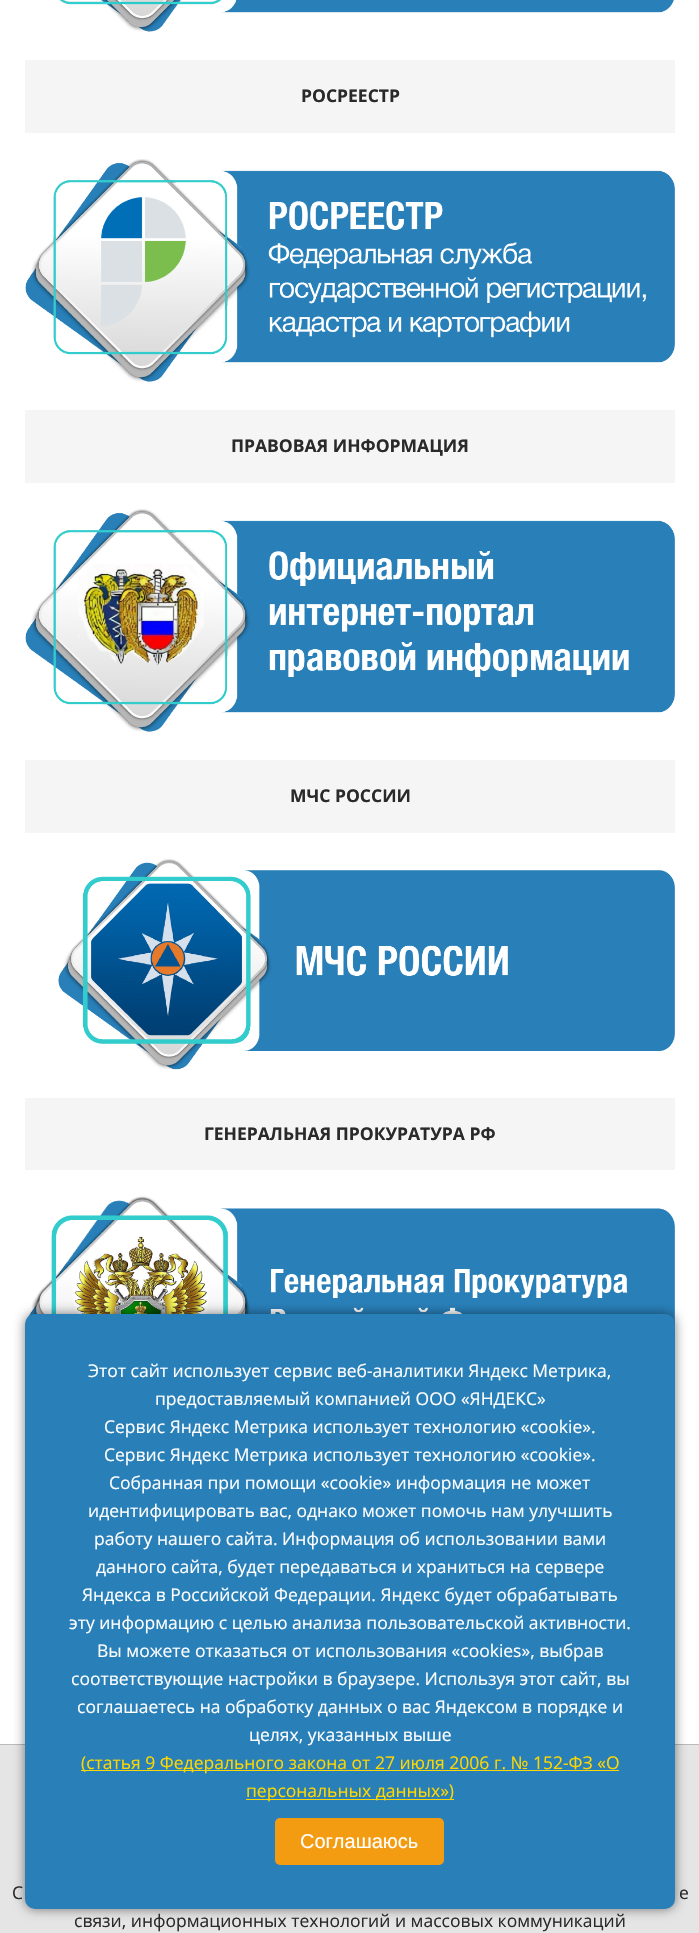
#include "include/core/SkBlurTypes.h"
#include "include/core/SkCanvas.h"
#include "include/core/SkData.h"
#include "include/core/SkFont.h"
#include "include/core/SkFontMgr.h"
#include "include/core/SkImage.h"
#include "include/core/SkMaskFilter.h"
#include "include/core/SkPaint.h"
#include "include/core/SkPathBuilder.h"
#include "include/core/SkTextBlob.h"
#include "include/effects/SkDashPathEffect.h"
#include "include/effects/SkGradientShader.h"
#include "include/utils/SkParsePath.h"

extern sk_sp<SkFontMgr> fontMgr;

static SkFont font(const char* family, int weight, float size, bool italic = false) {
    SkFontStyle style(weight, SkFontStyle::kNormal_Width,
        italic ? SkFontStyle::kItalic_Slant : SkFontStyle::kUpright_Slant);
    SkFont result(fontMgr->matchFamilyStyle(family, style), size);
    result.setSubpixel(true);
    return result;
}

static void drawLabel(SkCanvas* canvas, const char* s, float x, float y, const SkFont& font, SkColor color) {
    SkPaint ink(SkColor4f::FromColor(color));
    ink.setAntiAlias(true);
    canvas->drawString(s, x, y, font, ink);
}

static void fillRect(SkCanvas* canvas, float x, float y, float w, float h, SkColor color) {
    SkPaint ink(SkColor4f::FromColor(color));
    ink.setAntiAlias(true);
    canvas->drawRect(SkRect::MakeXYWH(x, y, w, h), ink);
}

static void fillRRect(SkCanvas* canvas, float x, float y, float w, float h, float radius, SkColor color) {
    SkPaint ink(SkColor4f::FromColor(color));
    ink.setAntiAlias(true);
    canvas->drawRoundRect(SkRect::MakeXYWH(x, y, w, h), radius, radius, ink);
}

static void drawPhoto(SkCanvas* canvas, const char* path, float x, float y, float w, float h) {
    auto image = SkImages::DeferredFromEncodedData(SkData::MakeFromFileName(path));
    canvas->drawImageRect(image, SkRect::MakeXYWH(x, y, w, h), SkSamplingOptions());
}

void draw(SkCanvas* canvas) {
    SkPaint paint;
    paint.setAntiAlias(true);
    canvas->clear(0xFFFFFFFF);
    drawPhoto(canvas, "assets/img1.png", 59, 0, 615, 32);
    fillRect(canvas, 25, 60, 650, 73, 0xFFF5F5F5);
    SkFont font1 = font("Open Sans", 700, 17.5f);
    drawLabel(canvas, "РОСРЕЕСТР", 301, 102, font1, 0xFF2A2A2A);
    drawPhoto(canvas, "assets/img2.png", 25, 159, 650, 223);
    fillRect(canvas, 25, 410, 650, 73, 0xFFF5F5F5);
    drawLabel(canvas, "ПРАВОВАЯ ИНФОРМАЦИЯ", 231, 452, font1, 0xFF2A2A2A);
    drawPhoto(canvas, "assets/img3.png", 25, 509, 650, 223);
    fillRect(canvas, 25, 760, 650, 73, 0xFFF5F5F5);
    drawLabel(canvas, "МЧС РОССИИ", 290, 802, font1, 0xFF2A2A2A);
    drawPhoto(canvas, "assets/img4.png", 58, 859, 617, 211);
    fillRect(canvas, 25, 1098, 650, 72, 0xFFF5F5F5);
    drawLabel(canvas, "ГЕНЕРАЛЬНАЯ ПРОКУРАТУРА РФ", 204, 1140, font1, 0xFF2A2A2A);
    drawPhoto(canvas, "assets/img5.png", 25, 1196, 650, 128);
    fillRect(canvas, 0, 1745, 699, 188, 0xFFE5E5E5);
    fillRect(canvas, 0, 1744, 699, 1, 0xFFBBBBBB);
    SkFont font2 = font("Open Sans", 400, 17.5f);
    drawLabel(canvas, "С", 12, 1899, font2, 0xFF2A2A2A);
    drawLabel(canvas, "е", 679, 1899, font2, 0xFF2A2A2A);
    drawLabel(canvas, "связи, информационных технологий и массовых коммуникаций", 74, 1927, font2, 0xFF2A2A2A);
    paint.setColor(0x80000000);
    paint.setMaskFilter(SkMaskFilter::MakeBlur(kNormal_SkBlurStyle, 6));
    canvas->drawRoundRect(SkRect::MakeXYWH(25, 1314, 650, 595), 10, 10, paint);
    paint.setMaskFilter(nullptr);
    fillRRect(canvas, 25, 1314, 650, 595, 10, 0xFF2980B9);
    drawLabel(canvas, "Этот сайт использует сервис веб-аналитики Яндекс Метрика,", 88, 1377, font2, 0xFFFFFFFF);
    drawLabel(canvas, "предоставляемый компанией ООО «ЯНДЕКС»", 155, 1405, font2, 0xFFFFFFFF);
    drawLabel(canvas, "Сервис Яндекс Метрика использует технологию «cookie».", 104, 1433, font2, 0xFFFFFFFF);
    drawLabel(canvas, "Сервис Яндекс Метрика использует технологию «cookie».", 104, 1461, font2, 0xFFFFFFFF);
    drawLabel(canvas, "Собранная при помощи «cookie» информация не может", 109, 1489, font2, 0xFFFFFFFF);
    drawLabel(canvas, "идентифицировать вас, однако может помочь нам улучшить", 88, 1517, font2, 0xFFFFFFFF);
    drawLabel(canvas, "работу нашего сайта. Информация об использовании вами", 94, 1545, font2, 0xFFFFFFFF);
    drawLabel(canvas, "данного сайта, будет передаваться и храниться на сервере", 96, 1573, font2, 0xFFFFFFFF);
    drawLabel(canvas, "Яндекса в Российской Федерации. Яндекс будет обрабатывать", 82, 1601, font2, 0xFFFFFFFF);
    drawLabel(canvas, "эту информацию с целью анализа пользовательской активности.", 69, 1629, font2, 0xFFFFFFFF);
    drawLabel(canvas, "Вы можете отказаться от использования «cookies», выбрав", 97, 1657, font2, 0xFFFFFFFF);
    drawLabel(canvas, "соответствующие настройки в браузере. Используя этот сайт, вы", 71, 1685, font2, 0xFFFFFFFF);
    drawLabel(canvas, "соглашаетесь на обработку данных о вас Яндексом в порядке и", 77, 1713, font2, 0xFFFFFFFF);
    drawLabel(canvas, "целях, указанных выше", 249, 1741, font2, 0xFFFFFFFF);
    fillRect(canvas, 81, 1770, 538, 1, 0xFFFFD700);
    drawLabel(canvas, "(статья 9 Федерального закона от 27 июля 2006 г. № 152-ФЗ «О", 81, 1769, font2, 0xFFFFD700);
    fillRect(canvas, 246, 1799, 208, 1, 0xFFFFD700);
    drawLabel(canvas, "персональных данных»)", 246, 1797, font2, 0xFFFFD700);
    fillRRect(canvas, 275, 1818, 169, 47, 5, 0xFFF39C12);
    SkFont font3 = font("Liberation Sans", 400, 20);
    drawLabel(canvas, "Соглашаюсь", 300, 1848, font3, 0xFFFFFFFF);
}
